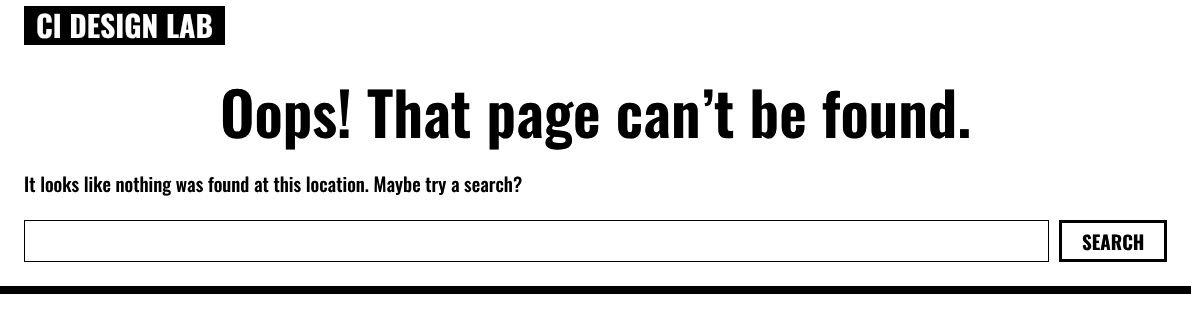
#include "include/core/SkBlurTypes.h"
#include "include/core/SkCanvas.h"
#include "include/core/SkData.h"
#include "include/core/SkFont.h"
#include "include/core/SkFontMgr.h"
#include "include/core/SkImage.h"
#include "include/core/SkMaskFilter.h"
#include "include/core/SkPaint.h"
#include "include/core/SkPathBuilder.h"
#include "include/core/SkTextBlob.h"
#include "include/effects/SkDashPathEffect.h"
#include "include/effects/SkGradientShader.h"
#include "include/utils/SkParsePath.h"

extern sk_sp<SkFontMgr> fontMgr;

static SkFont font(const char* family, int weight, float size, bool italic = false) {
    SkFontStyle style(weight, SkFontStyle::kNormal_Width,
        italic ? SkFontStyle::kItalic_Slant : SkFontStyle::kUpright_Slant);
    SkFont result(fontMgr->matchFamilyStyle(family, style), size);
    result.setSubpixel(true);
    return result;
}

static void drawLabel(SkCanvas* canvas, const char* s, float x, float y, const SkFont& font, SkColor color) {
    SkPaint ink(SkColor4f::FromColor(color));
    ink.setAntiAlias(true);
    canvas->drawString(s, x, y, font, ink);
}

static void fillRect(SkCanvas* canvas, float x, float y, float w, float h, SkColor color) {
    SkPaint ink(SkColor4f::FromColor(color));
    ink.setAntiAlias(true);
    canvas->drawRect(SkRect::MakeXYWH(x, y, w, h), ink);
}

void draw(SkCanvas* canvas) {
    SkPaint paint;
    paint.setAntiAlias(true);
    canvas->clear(0xFFFFFFFF);
    fillRect(canvas, 24, 6, 201, 39, 0xFF000000);
    SkFont font1 = font("Oswald", 700, 29.75f);
    drawLabel(canvas, "CI DESIGN LAB", 36, 38, font1, 0xFFFFFFFF);
    SkFont font2 = font("Oswald", 600, 60);
    drawLabel(canvas, "Oops! That page can’t be found.", 220, 138, font2, 0xFF000000);
    SkFont font3 = font("Oswald", 500, 19);
    drawLabel(canvas, "It looks like nothing was found at this location. Maybe try a search?", 24, 192, font3, 0xFF000000);
    paint.setStroke(true);
    paint.setStrokeWidth(1);
    paint.setColor(0xFF000000);
    canvas->drawRect(SkRect::MakeXYWH(24.5f, 220.5f, 1024, 41), paint);
    paint.setStrokeWidth(3);
    canvas->drawRect(SkRect::MakeXYWH(1060.5f, 221.5f, 105, 39), paint);
    SkFont font4 = font("Oswald", 700, 19);
    drawLabel(canvas, "SEARCH", 1082, 250, font4, 0xFF000000);
    fillRect(canvas, 0, 286, 1191, 8, 0xFF000000);
}
